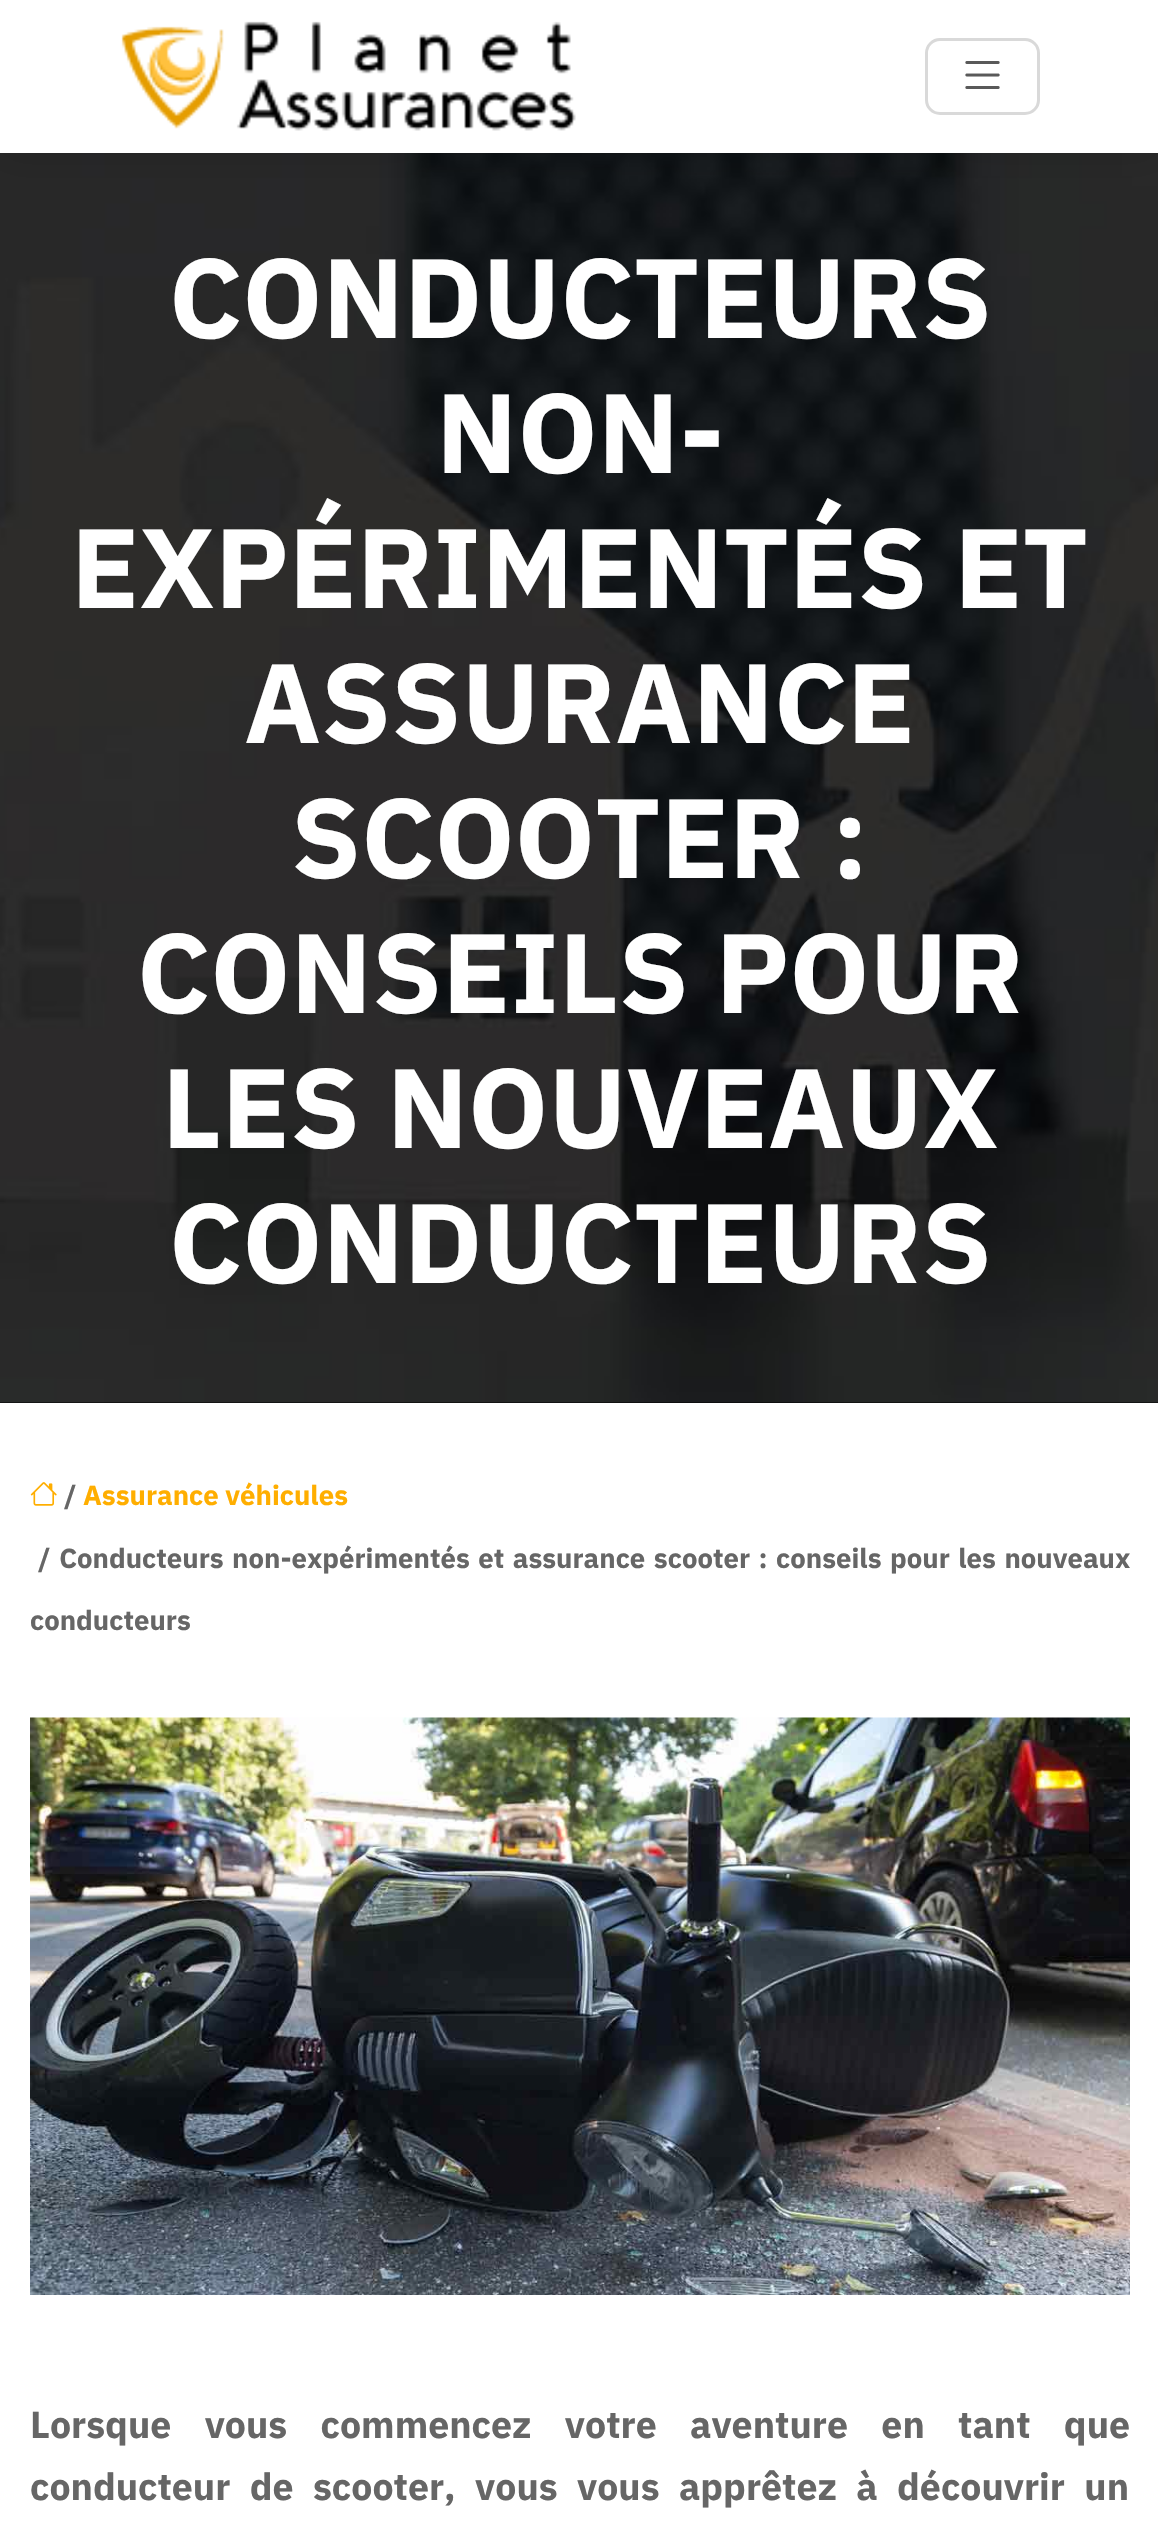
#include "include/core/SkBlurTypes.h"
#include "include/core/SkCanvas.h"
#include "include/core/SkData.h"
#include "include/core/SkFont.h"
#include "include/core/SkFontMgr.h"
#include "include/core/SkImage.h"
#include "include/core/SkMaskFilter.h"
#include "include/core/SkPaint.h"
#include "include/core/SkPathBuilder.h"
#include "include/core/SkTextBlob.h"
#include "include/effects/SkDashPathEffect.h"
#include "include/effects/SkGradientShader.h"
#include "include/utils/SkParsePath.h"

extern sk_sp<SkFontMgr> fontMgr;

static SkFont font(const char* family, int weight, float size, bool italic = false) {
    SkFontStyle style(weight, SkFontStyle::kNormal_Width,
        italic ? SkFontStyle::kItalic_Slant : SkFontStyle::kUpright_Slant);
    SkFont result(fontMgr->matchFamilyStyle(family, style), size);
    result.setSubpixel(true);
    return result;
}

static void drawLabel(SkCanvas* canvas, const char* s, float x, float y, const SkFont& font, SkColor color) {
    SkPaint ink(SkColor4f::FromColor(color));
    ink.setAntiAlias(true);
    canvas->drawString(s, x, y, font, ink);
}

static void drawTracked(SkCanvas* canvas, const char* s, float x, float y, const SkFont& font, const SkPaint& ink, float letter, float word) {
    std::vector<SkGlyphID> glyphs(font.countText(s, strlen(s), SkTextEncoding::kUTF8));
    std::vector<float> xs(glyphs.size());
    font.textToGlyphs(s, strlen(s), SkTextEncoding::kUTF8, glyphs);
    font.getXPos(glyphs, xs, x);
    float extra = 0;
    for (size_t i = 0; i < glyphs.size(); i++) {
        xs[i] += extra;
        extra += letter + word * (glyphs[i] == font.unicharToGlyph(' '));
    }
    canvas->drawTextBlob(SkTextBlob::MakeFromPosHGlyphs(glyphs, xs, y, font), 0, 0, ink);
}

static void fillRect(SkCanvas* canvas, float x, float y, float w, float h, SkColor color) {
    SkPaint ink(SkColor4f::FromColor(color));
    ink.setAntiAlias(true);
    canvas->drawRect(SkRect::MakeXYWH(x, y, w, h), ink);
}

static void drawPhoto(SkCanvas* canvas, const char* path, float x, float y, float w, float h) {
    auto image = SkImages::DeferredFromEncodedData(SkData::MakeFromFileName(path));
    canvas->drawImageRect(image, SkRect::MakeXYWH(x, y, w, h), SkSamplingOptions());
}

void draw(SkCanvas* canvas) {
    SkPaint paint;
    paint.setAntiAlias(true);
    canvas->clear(0xFFFFFFFF);
    fillRect(canvas, 0, 1402, 1158, 1, 0xFF000000);
    drawPhoto(canvas, "assets/img3.png", 0, 153, 1158, 1250);
    paint.setColor(0x1A000000);
    paint.setMaskFilter(SkMaskFilter::MakeBlur(kNormal_SkBlurStyle, 16));
    canvas->drawRect(SkRect::MakeXYWH(0, 5, 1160, 153), paint);
    paint.setMaskFilter(nullptr);
    fillRect(canvas, 0, 0, 1158, 153, 0xFFFFFFFF);
    drawPhoto(canvas, "assets/img1.png", 121, 21, 455, 110);
    paint.setStroke(true);
    paint.setStrokeWidth(3);
    paint.setColor(0xFFD9D9D9);
    canvas->drawRoundRect(SkRect::MakeXYWH(926.5f, 39.5f, 112, 74), 13.5f, 13.5f, paint);
    drawPhoto(canvas, "assets/img2.png", 965, 61, 35, 28);
    SkFont font1 = font("IBM Plex Sans", 700, 112.5f);
    drawLabel(canvas, "CONDUCTEURS", 169, 338, font1, 0xFFFFFFFF);
    drawLabel(canvas, "NON-", 436, 473, font1, 0xFFFFFFFF);
    drawLabel(canvas, "EXPÉRIMENTÉS ET", 71, 608, font1, 0xFFFFFFFF);
    drawLabel(canvas, "ASSURANCE", 244, 743, font1, 0xFFFFFFFF);
    drawLabel(canvas, "SCOOTER :", 291, 878, font1, 0xFFFFFFFF);
    drawLabel(canvas, "CONSEILS POUR", 137, 1013, font1, 0xFFFFFFFF);
    drawLabel(canvas, "LES NOUVEAUX", 162, 1148, font1, 0xFFFFFFFF);
    drawLabel(canvas, "CONDUCTEURS", 169, 1283, font1, 0xFFFFFFFF);
    drawPhoto(canvas, "assets/img4.png", 30, 1482, 27, 24);
    SkFont font2 = font("IBM Plex Sans", 700, 27.5f);
    drawLabel(canvas, "/", 64, 1505, font2, 0xFF666666);
    drawLabel(canvas, "Assurance véhicules", 83, 1505, font2, 0xFFFFAE00);
    paint.setStroke(false);
    paint.setColor(0xFF666666);
    drawTracked(canvas, "/ Conducteurs non-expérimentés et assurance scooter : conseils pour les nouveaux", 38, 1568, font2, paint, 0, 2);
    drawLabel(canvas, "conducteurs", 30, 1630, font2, 0xFF666666);
    drawPhoto(canvas, "assets/img5.png", 30, 1717, 1100, 578);
    SkFont font3 = font("IBM Plex Sans", 700, 37.5f);
    drawTracked(canvas, "Lorsque vous commencez votre aventure en tant que", 30, 2438, font3, paint, 0, 24.5f);
    drawTracked(canvas, "conducteur de scooter, vous vous apprêtez à découvrir un", 30, 2500, font3, paint, 0, 10.5f);
}
